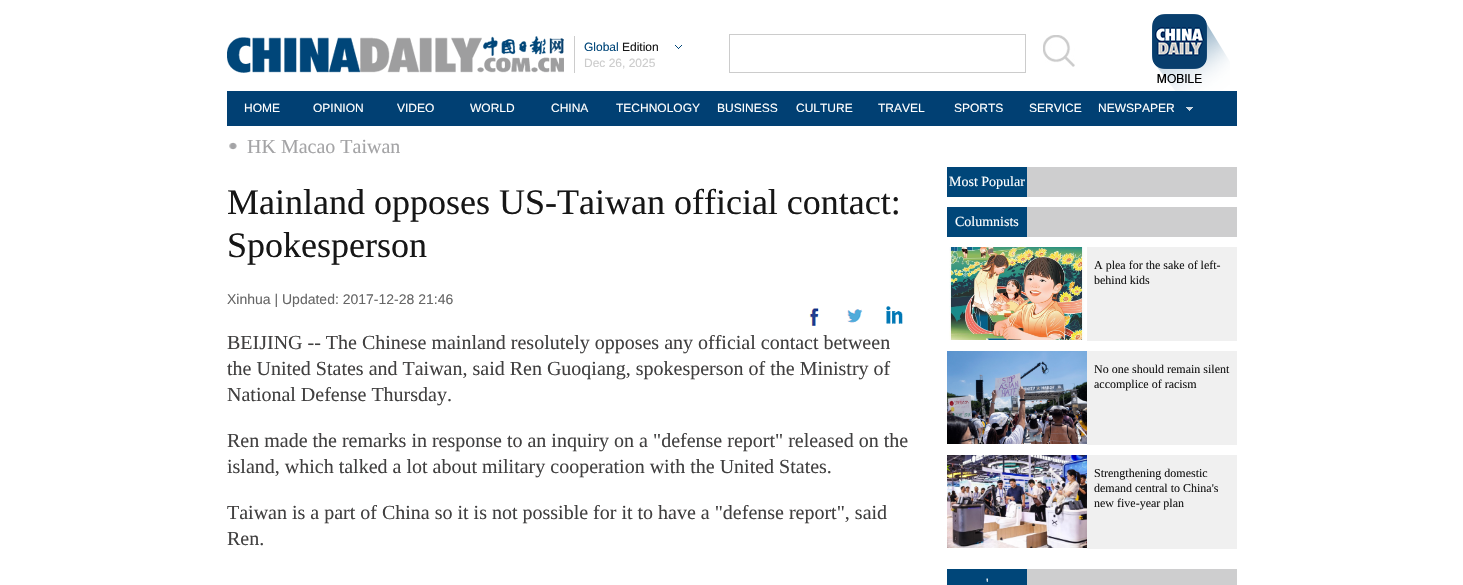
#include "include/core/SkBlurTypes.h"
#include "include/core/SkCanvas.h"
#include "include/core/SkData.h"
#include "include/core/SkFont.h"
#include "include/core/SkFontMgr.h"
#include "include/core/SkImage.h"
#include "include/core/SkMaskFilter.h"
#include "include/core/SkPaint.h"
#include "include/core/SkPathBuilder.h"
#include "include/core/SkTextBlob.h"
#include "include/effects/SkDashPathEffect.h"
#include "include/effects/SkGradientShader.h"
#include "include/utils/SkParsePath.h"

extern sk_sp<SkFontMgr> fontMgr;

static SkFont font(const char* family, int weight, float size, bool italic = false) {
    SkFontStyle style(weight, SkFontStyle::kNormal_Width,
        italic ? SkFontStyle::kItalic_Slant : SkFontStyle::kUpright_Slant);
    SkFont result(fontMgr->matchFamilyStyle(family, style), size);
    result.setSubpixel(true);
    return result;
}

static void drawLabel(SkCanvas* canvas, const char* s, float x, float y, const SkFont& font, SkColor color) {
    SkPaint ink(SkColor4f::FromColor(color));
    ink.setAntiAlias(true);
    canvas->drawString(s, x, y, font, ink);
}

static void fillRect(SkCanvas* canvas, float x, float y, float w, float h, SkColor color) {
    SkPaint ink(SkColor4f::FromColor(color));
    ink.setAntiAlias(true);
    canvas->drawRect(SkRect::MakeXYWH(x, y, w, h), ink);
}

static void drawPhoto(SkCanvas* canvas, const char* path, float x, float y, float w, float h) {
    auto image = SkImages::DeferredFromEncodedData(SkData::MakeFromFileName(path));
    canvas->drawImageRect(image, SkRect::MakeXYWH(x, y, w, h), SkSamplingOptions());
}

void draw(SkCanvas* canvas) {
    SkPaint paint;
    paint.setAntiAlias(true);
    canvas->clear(0xFFFFFFFF);
    fillRect(canvas, 574, 36, 1, 37, 0xFFCCCCCC);
    drawPhoto(canvas, "assets/img1.png", 227, 36, 337, 37);
    drawPhoto(canvas, "assets/img2.png", 675, 45, 7, 4);
    SkFont font1 = font("Liberation Sans", 400, 12);
    drawLabel(canvas, "Global", 584, 51, font1, 0xFF004679);
    drawLabel(canvas, "Edition", 622, 51, font1, 0xFF161616);
    drawLabel(canvas, "Dec 26, 2025", 584, 67, font1, 0xFFCCCCCC);
    paint.setStroke(true);
    paint.setStrokeWidth(1);
    paint.setColor(0xFFCCCCCC);
    canvas->drawRect(SkRect::MakeXYWH(729.5f, 34.5f, 296, 38), paint);
    drawPhoto(canvas, "assets/img3.png", 1043, 35, 32, 32);
    drawPhoto(canvas, "assets/img4.png", 1152, 14, 78, 77);
    fillRect(canvas, 227, 91, 1010, 35, 0xFF014073);
    drawLabel(canvas, "HOME", 244, 112, font1, 0xFFFFFFFF);
    drawLabel(canvas, "OPINION", 313, 112, font1, 0xFFFFFFFF);
    drawLabel(canvas, "VIDEO", 397, 112, font1, 0xFFFFFFFF);
    drawLabel(canvas, "WORLD", 470, 112, font1, 0xFFFFFFFF);
    drawLabel(canvas, "CHINA", 551, 112, font1, 0xFFFFFFFF);
    drawLabel(canvas, "TECHNOLOGY", 616, 112, font1, 0xFFFFFFFF);
    drawLabel(canvas, "BUSINESS", 717, 112, font1, 0xFFFFFFFF);
    drawLabel(canvas, "CULTURE", 796, 112, font1, 0xFFFFFFFF);
    drawLabel(canvas, "TRAVEL", 878, 112, font1, 0xFFFFFFFF);
    drawLabel(canvas, "SPORTS", 954, 112, font1, 0xFFFFFFFF);
    drawLabel(canvas, "SERVICE", 1029, 112, font1, 0xFFFFFFFF);
    drawPhoto(canvas, "assets/img5.png", 1186, 107, 7, 4);
    drawLabel(canvas, "NEWSPAPER", 1098, 112, font1, 0xFFFFFFFF);
    drawPhoto(canvas, "assets/img6.png", 229, 142, 8, 8);
    SkFont font2 = font("Liberation Serif", 400, 20);
    drawLabel(canvas, "HK Macao Taiwan", 247, 153, font2, 0xFFA4A4A6);
    SkFont font3 = font("Liberation Serif", 400, 36);
    drawLabel(canvas, "Mainland opposes US-Taiwan official contact:", 227, 214, font3, 0xFF161616);
    drawLabel(canvas, "Spokesperson", 227, 257, font3, 0xFF161616);
    SkFont font4 = font("Liberation Sans", 400, 14);
    drawLabel(canvas, "Xinhua | Updated: 2017-12-28 21:46", 227, 304, font4, 0xFF666666);
    drawPhoto(canvas, "assets/img7.png", 809, 308, 10, 18);
    drawPhoto(canvas, "assets/img8.png", 847, 309, 16, 14);
    drawPhoto(canvas, "assets/img9.png", 886, 306, 17, 18);
    drawLabel(canvas, "BEIJING -- The Chinese mainland resolutely opposes any official contact between", 227, 349, font2, 0xFF414040);
    drawLabel(canvas, "the United States and Taiwan, said Ren Guoqiang, spokesperson of the Ministry of", 227, 375, font2, 0xFF414040);
    drawLabel(canvas, "National Defense Thursday.", 227, 401, font2, 0xFF414040);
    drawLabel(canvas, "Ren made the remarks in response to an inquiry on a \"defense report\" released on the", 227, 447, font2, 0xFF414040);
    drawLabel(canvas, "island, which talked a lot about military cooperation with the United States.", 227, 473, font2, 0xFF414040);
    drawLabel(canvas, "Taiwan is a part of China so it is not possible for it to have a \"defense report\", said", 227, 519, font2, 0xFF414040);
    drawLabel(canvas, "Ren.", 227, 545, font2, 0xFF414040);
    fillRect(canvas, 1027, 167, 210, 30, 0xFFCECECF);
    fillRect(canvas, 947, 167, 80, 30, 0xFF004679);
    SkFont font5 = font("Liberation Serif", 400, 14);
    drawLabel(canvas, "Most Popular", 949, 186, font5, 0xFFFFFFFF);
    fillRect(canvas, 1027, 207, 210, 30, 0xFFCECECF);
    fillRect(canvas, 947, 207, 80, 30, 0xFF004679);
    drawLabel(canvas, "Columnists", 955, 226, font5, 0xFFFFFFFF);
    drawPhoto(canvas, "assets/img10.png", 949, 247, 137, 93);
    fillRect(canvas, 1087, 247, 150, 94, 0xFFF0F0F0);
    SkFont font6 = font("Liberation Serif", 400, 12);
    drawLabel(canvas, "A plea for the sake of left-", 1094, 269, font6, 0xFF161616);
    drawLabel(canvas, "behind kids", 1094, 284, font6, 0xFF161616);
    drawPhoto(canvas, "assets/img11.png", 947, 351, 140, 93);
    fillRect(canvas, 1087, 351, 150, 94, 0xFFF0F0F0);
    drawLabel(canvas, "No one should remain silent", 1094, 373, font6, 0xFF161616);
    drawLabel(canvas, "accomplice of racism", 1094, 388, font6, 0xFF161616);
    drawPhoto(canvas, "assets/img12.png", 947, 455, 140, 93);
    fillRect(canvas, 1087, 455, 150, 94, 0xFFF0F0F0);
    drawLabel(canvas, "Strengthening domestic", 1094, 477, font6, 0xFF161616);
    drawLabel(canvas, "demand central to China's", 1094, 492, font6, 0xFF161616);
    drawLabel(canvas, "new five-year plan", 1094, 507, font6, 0xFF161616);
    fillRect(canvas, 1027, 569, 210, 16, 0xFFCECECF);
    fillRect(canvas, 947, 569, 80, 16, 0xFF004679);
    drawLabel(canvas, "'", 986, 588, font5, 0xFFFFFFFF);
}
